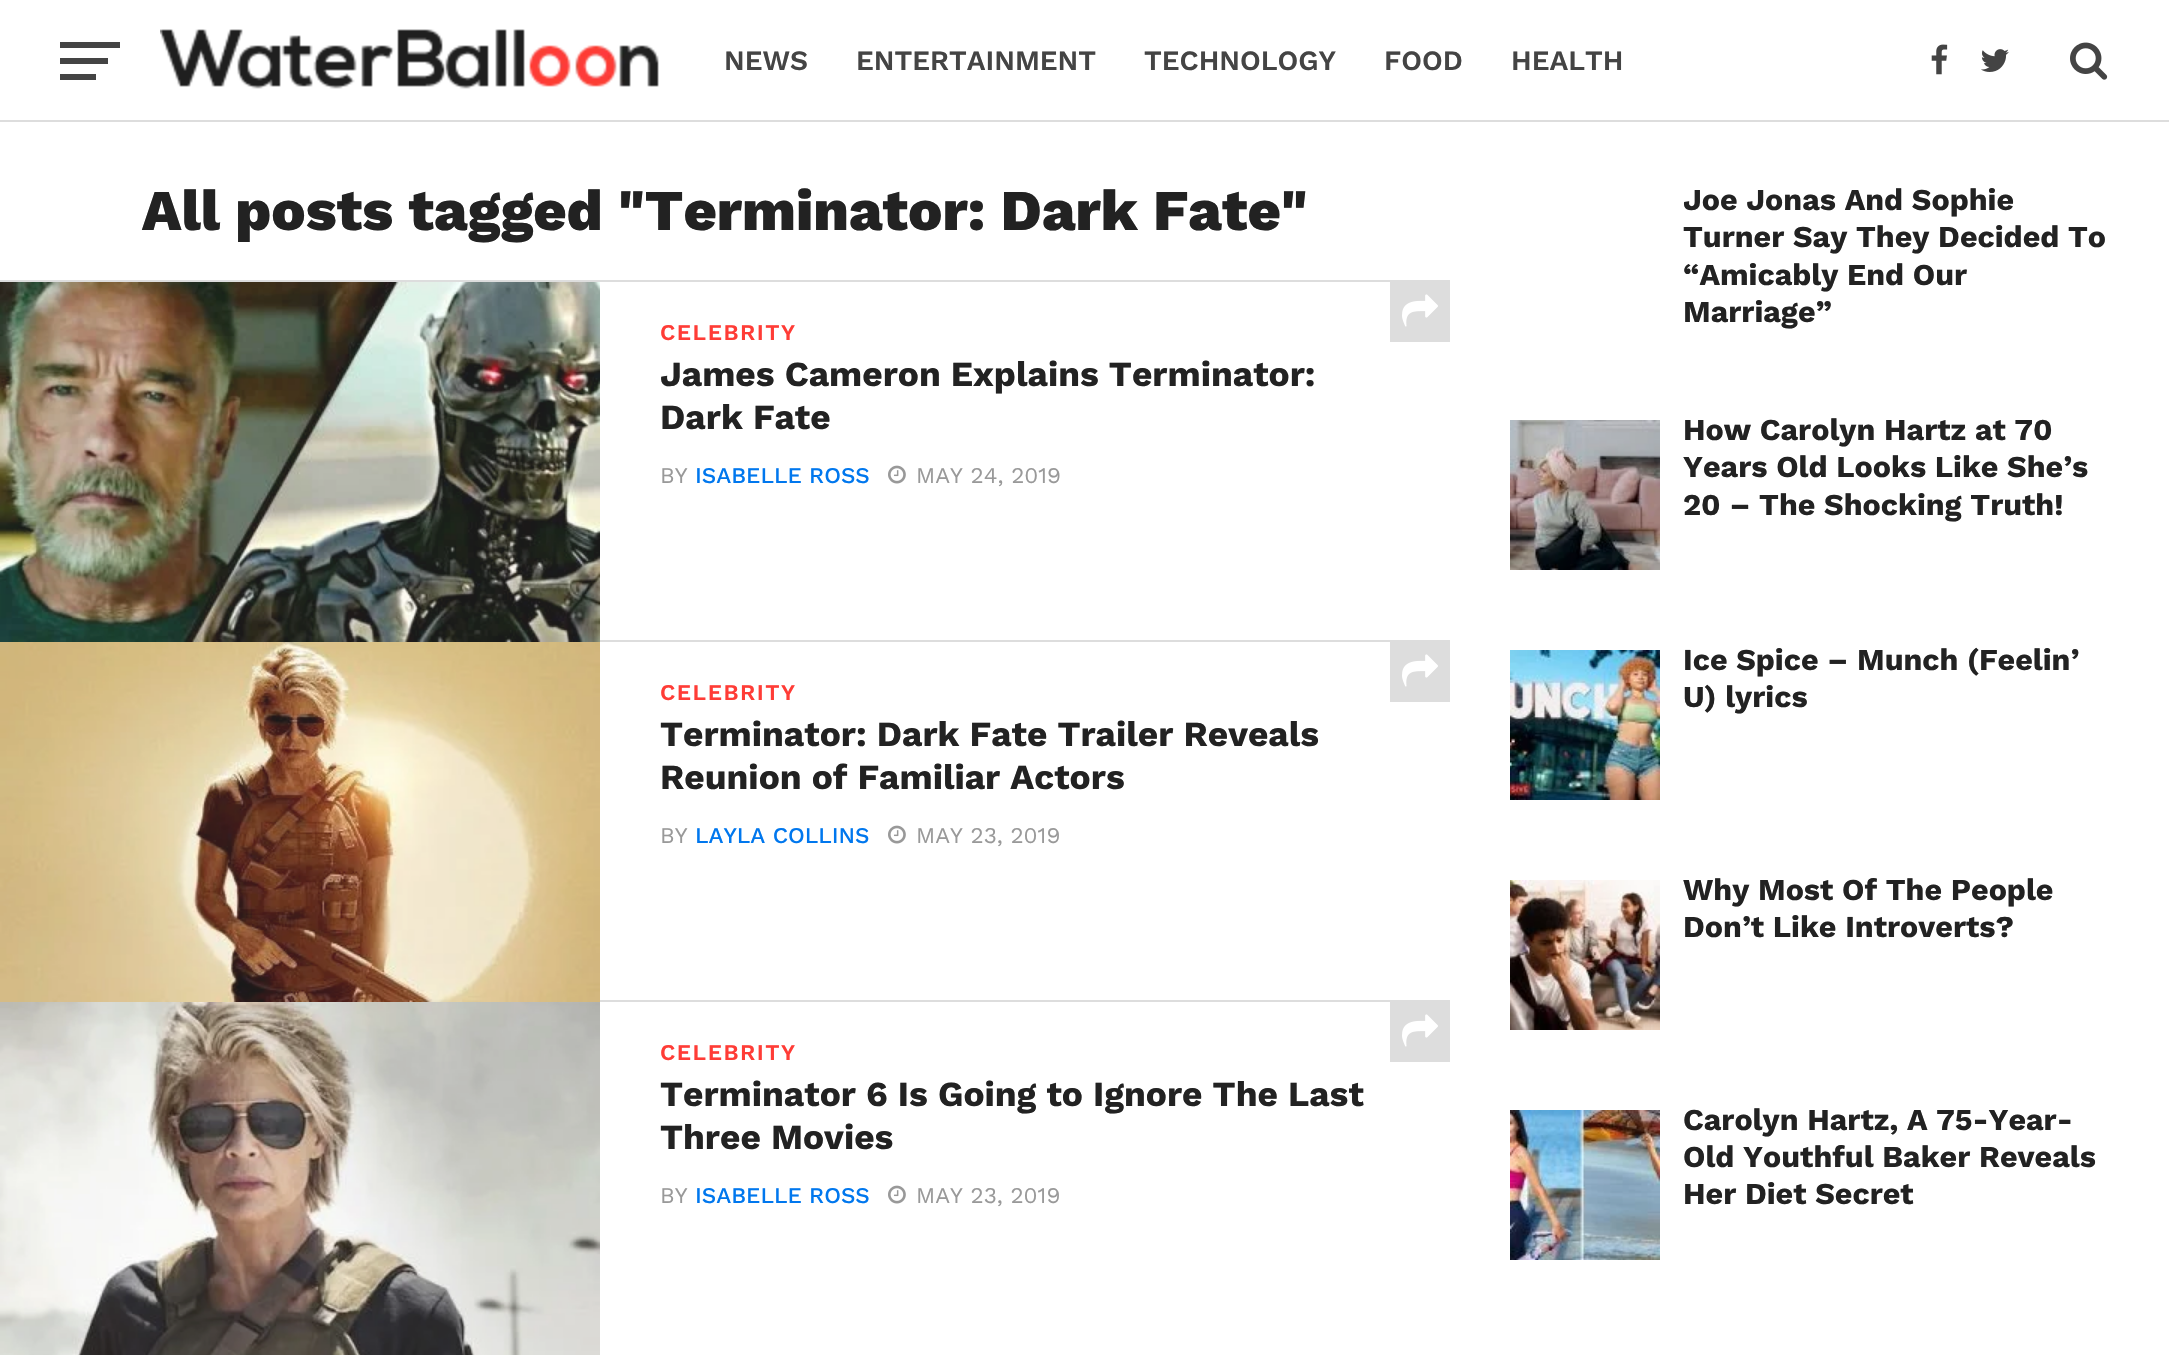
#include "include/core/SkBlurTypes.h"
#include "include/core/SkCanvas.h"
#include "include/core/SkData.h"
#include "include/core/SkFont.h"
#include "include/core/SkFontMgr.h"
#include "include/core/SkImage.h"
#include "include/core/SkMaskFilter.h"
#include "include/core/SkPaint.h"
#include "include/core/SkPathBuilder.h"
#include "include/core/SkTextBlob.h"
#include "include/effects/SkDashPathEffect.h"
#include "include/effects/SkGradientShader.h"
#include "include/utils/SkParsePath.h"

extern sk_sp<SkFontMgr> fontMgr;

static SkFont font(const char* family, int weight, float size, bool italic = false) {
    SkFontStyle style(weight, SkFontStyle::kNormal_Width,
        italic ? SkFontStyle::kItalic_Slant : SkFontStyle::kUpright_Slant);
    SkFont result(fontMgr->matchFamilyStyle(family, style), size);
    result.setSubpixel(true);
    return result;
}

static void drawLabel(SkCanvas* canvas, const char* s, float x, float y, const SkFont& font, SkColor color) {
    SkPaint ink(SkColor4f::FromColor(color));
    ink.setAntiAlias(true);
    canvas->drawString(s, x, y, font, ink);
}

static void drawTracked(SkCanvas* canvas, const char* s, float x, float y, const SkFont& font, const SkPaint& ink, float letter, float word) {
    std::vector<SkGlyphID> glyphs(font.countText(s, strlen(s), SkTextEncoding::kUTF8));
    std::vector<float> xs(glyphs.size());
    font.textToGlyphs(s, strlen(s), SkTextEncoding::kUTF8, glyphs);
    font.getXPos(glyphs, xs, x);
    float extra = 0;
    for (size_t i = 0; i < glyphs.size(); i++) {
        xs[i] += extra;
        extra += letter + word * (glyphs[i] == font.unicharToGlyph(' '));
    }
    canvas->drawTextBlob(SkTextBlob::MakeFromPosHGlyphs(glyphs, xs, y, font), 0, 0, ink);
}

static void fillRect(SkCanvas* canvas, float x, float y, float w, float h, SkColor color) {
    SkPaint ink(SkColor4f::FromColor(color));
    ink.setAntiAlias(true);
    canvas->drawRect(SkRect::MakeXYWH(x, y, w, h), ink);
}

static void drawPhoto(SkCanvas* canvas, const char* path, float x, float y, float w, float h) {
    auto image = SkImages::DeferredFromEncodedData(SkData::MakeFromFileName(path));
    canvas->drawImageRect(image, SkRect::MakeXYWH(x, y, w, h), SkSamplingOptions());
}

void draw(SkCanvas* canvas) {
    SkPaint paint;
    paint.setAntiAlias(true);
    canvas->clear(0xFFFFFFFF);
    fillRect(canvas, 60, 42, 60, 6, 0xFF444444);
    fillRect(canvas, 60, 58, 48, 6, 0xFF444444);
    fillRect(canvas, 60, 74, 36, 6, 0xFF444444);
    drawPhoto(canvas, "assets/img1.png", 160, 29, 499, 60);
    SkFont font1 = font("Work Sans", 600, 28);
    drawLabel(canvas, "NEWS", 724, 70, font1, 0xFF444444);
    drawLabel(canvas, "ENTERTAINMENT", 856, 70, font1, 0xFF444444);
    drawLabel(canvas, "TECHNOLOGY", 1144, 70, font1, 0xFF444444);
    drawLabel(canvas, "FOOD", 1384, 70, font1, 0xFF444444);
    drawLabel(canvas, "HEALTH", 1511, 70, font1, 0xFF444444);
    drawPhoto(canvas, "assets/img2.png", 1931, 44, 17, 31);
    drawPhoto(canvas, "assets/img3.png", 1981, 49, 28, 23);
    drawPhoto(canvas, "assets/img4.png", 2070, 42, 38, 38);
    fillRect(canvas, 0, 120, 2169, 2, 0xFFDDDDDD);
    SkFont font2 = font("Work Sans", 800, 57.6f);
    drawLabel(canvas, "All posts tagged \"Terminator: Dark Fate\"", 142, 230, font2, 0xFF222222);
    fillRect(canvas, 0, 280, 1450, 2, 0xFFDDDDDD);
    drawPhoto(canvas, "assets/img5.png", 0, 282, 600, 360);
    fillRect(canvas, 600, 640, 850, 2, 0xFFDDDDDD);
    SkFont font3 = font("Work Sans", 600, 22.5f);
    paint.setColor(0xFFFF3C36);
    drawTracked(canvas, "CELEBRITY", 660, 340, font3, paint, 1.5f, 0);
    fillRect(canvas, 1390, 282, 60, 60, 0xFFDDDDDD);
    drawPhoto(canvas, "assets/img6.png", 1402, 294, 36, 33);
    SkFont font4 = font("Work Sans", 700, 35.25f);
    drawLabel(canvas, "James Cameron Explains Terminator:", 660, 386, font4, 0xFF222222);
    drawLabel(canvas, "Dark Fate", 660, 429, font4, 0xFF222222);
    SkFont font5 = font("Work Sans", 400, 22.5f);
    drawLabel(canvas, "BY", 660, 483, font5, 0xFF999999);
    SkFont font6 = font("Work Sans", 500, 22.5f);
    drawLabel(canvas, "ISABELLE ROSS", 695, 483, font6, 0xFF0077EE);
    drawPhoto(canvas, "assets/img7.png", 888, 465, 18, 19);
    drawLabel(canvas, "MAY 24, 2019", 916, 483, font5, 0xFF999999);
    drawPhoto(canvas, "assets/img8.png", 0, 642, 600, 360);
    fillRect(canvas, 600, 1000, 850, 2, 0xFFDDDDDD);
    drawTracked(canvas, "CELEBRITY", 660, 700, font3, paint, 1.5f, 0);
    fillRect(canvas, 1390, 642, 60, 60, 0xFFDDDDDD);
    drawPhoto(canvas, "assets/img6.png", 1402, 654, 36, 33);
    drawLabel(canvas, "Terminator: Dark Fate Trailer Reveals", 660, 746, font4, 0xFF222222);
    drawLabel(canvas, "Reunion of Familiar Actors", 660, 789, font4, 0xFF222222);
    drawLabel(canvas, "BY", 660, 843, font5, 0xFF999999);
    drawLabel(canvas, "LAYLA COLLINS", 695, 843, font6, 0xFF0077EE);
    drawPhoto(canvas, "assets/img7.png", 888, 825, 18, 19);
    drawLabel(canvas, "MAY 23, 2019", 916, 843, font5, 0xFF999999);
    drawPhoto(canvas, "assets/img9.png", 0, 1002, 600, 353);
    drawTracked(canvas, "CELEBRITY", 660, 1060, font3, paint, 1.5f, 0);
    fillRect(canvas, 1390, 1002, 60, 60, 0xFFDDDDDD);
    drawPhoto(canvas, "assets/img6.png", 1402, 1014, 36, 33);
    drawLabel(canvas, "Terminator 6 Is Going to Ignore The Last", 660, 1106, font4, 0xFF222222);
    drawLabel(canvas, "Three Movies", 660, 1149, font4, 0xFF222222);
    drawLabel(canvas, "BY", 660, 1203, font5, 0xFF999999);
    drawLabel(canvas, "ISABELLE ROSS", 695, 1203, font6, 0xFF0077EE);
    drawPhoto(canvas, "assets/img7.png", 888, 1185, 18, 19);
    drawLabel(canvas, "MAY 23, 2019", 916, 1203, font5, 0xFF999999);
    SkFont font7 = font("Work Sans", 700, 30.4f);
    drawLabel(canvas, "Joe Jonas And Sophie", 1683, 210, font7, 0xFF222222);
    drawLabel(canvas, "Turner Say They Decided To", 1683, 247, font7, 0xFF222222);
    drawLabel(canvas, "“Amicably End Our", 1683, 285, font7, 0xFF222222);
    drawLabel(canvas, "Marriage”", 1683, 322, font7, 0xFF222222);
    drawPhoto(canvas, "assets/img10.png", 1510, 420, 150, 150);
    drawLabel(canvas, "How Carolyn Hartz at 70", 1683, 440, font7, 0xFF222222);
    drawLabel(canvas, "Years Old Looks Like She’s", 1683, 477, font7, 0xFF222222);
    drawLabel(canvas, "20 – The Shocking Truth!", 1683, 515, font7, 0xFF222222);
    drawPhoto(canvas, "assets/img11.png", 1510, 650, 150, 150);
    drawLabel(canvas, "Ice Spice – Munch (Feelin’", 1683, 670, font7, 0xFF222222);
    drawLabel(canvas, "U) lyrics", 1683, 707, font7, 0xFF222222);
    drawPhoto(canvas, "assets/img12.png", 1510, 880, 150, 150);
    drawLabel(canvas, "Why Most Of The People", 1683, 900, font7, 0xFF222222);
    drawLabel(canvas, "Don’t Like Introverts?", 1683, 937, font7, 0xFF222222);
    drawPhoto(canvas, "assets/img13.png", 1510, 1110, 150, 150);
    drawLabel(canvas, "Carolyn Hartz, A 75-Year-", 1683, 1130, font7, 0xFF222222);
    drawLabel(canvas, "Old Youthful Baker Reveals", 1683, 1167, font7, 0xFF222222);
    drawLabel(canvas, "Her Diet Secret", 1683, 1204, font7, 0xFF222222);
}
